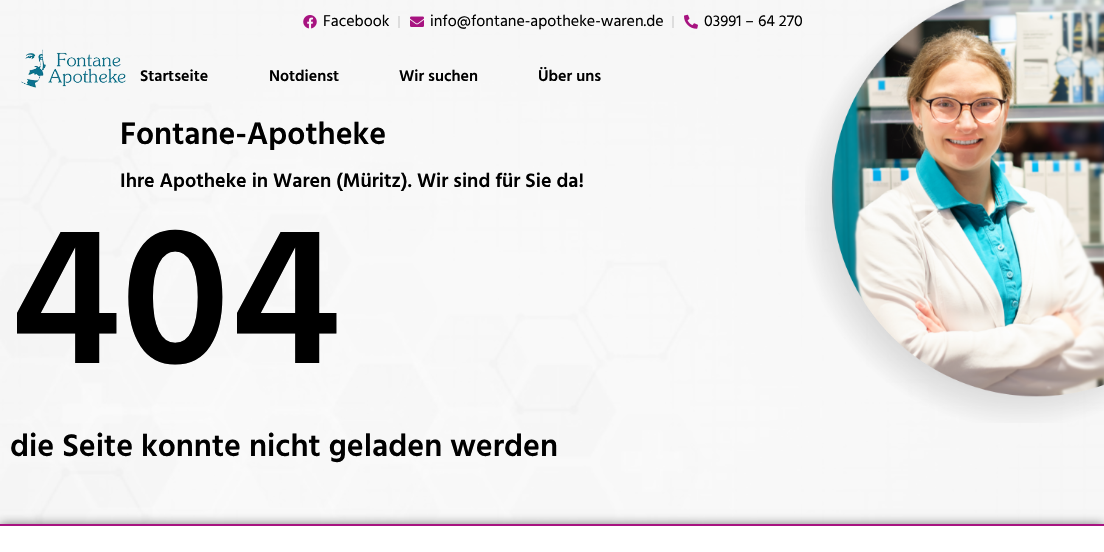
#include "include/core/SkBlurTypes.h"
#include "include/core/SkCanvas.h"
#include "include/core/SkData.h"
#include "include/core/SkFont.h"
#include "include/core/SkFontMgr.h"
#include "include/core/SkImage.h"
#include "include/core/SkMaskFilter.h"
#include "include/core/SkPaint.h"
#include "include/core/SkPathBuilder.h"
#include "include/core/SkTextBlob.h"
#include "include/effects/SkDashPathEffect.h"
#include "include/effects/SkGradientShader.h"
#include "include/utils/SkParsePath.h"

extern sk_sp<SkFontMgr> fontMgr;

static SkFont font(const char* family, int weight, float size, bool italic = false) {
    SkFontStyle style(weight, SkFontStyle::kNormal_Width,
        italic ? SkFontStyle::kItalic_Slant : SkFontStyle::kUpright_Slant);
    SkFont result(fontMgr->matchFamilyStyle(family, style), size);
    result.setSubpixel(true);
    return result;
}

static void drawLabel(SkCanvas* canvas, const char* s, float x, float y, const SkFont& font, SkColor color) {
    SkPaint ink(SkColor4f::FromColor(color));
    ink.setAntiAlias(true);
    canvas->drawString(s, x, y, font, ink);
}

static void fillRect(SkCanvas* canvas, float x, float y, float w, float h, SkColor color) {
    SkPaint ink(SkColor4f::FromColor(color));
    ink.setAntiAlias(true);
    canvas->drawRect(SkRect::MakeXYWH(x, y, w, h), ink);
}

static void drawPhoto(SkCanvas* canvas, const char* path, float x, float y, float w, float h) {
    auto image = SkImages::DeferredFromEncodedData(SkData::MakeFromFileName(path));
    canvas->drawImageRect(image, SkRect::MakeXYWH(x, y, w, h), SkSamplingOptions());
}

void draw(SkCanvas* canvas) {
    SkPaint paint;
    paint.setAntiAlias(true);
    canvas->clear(0xFFFFFFFF);
    drawPhoto(canvas, "assets/img1.png", 0, 0, 1104, 524);
    drawPhoto(canvas, "assets/img2.png", 805, 0, 299, 423);
    drawPhoto(canvas, "assets/img3.png", 21, 49, 105, 39);
    drawPhoto(canvas, "assets/img4.png", 303, 15, 14, 14);
    SkFont font1 = font("Hind", 400, 16);
    drawLabel(canvas, "Facebook", 323, 26, font1, 0xFF000000);
    fillRect(canvas, 398, 16, 2, 12, 0xFFDDDDDD);
    drawPhoto(canvas, "assets/img5.png", 410, 16, 14, 11);
    drawLabel(canvas, "info@fontane-apotheke-waren.de", 430, 26, font1, 0xFF000000);
    fillRect(canvas, 672, 16, 2, 12, 0xFFDDDDDD);
    drawPhoto(canvas, "assets/img6.png", 684, 14, 14, 15);
    drawLabel(canvas, "03991 – 64 270", 704, 26, font1, 0xFF000000);
    SkFont font2 = font("Hind", 600, 16);
    drawLabel(canvas, "Startseite", 140, 81, font2, 0xFF000000);
    drawLabel(canvas, "Notdienst", 269, 81, font2, 0xFF000000);
    drawLabel(canvas, "Wir suchen", 399, 81, font2, 0xFF000000);
    drawLabel(canvas, "Über uns", 538, 81, font2, 0xFF000000);
    SkFont font3 = font("Hind", 600, 32);
    drawLabel(canvas, "Fontane-Apotheke", 120, 144, font3, 0xFF000000);
    SkFont font4 = font("Hind", 600, 20);
    drawLabel(canvas, "Ihre Apotheke in Waren (Müritz). Wir sind für Sie da!", 120, 187, font4, 0xFF000000);
    SkFont font5 = font("Hind", 600, 200);
    drawLabel(canvas, "404", 10, 363, font5, 0xFF000000);
    drawLabel(canvas, "die Seite konnte nicht geladen werden", 10, 456, font3, 0xFF000000);
    paint.setColor(0x80000000);
    paint.setMaskFilter(SkMaskFilter::MakeBlur(kNormal_SkBlurStyle, 5));
    canvas->drawRect(SkRect::MakeXYWH(0, 524, 1104, 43), paint);
    paint.setMaskFilter(nullptr);
    fillRect(canvas, 0, 526, 1104, 26, 0xFFFFFFFF);
    fillRect(canvas, 0, 524, 1104, 2, 0xFFA71380);
}
